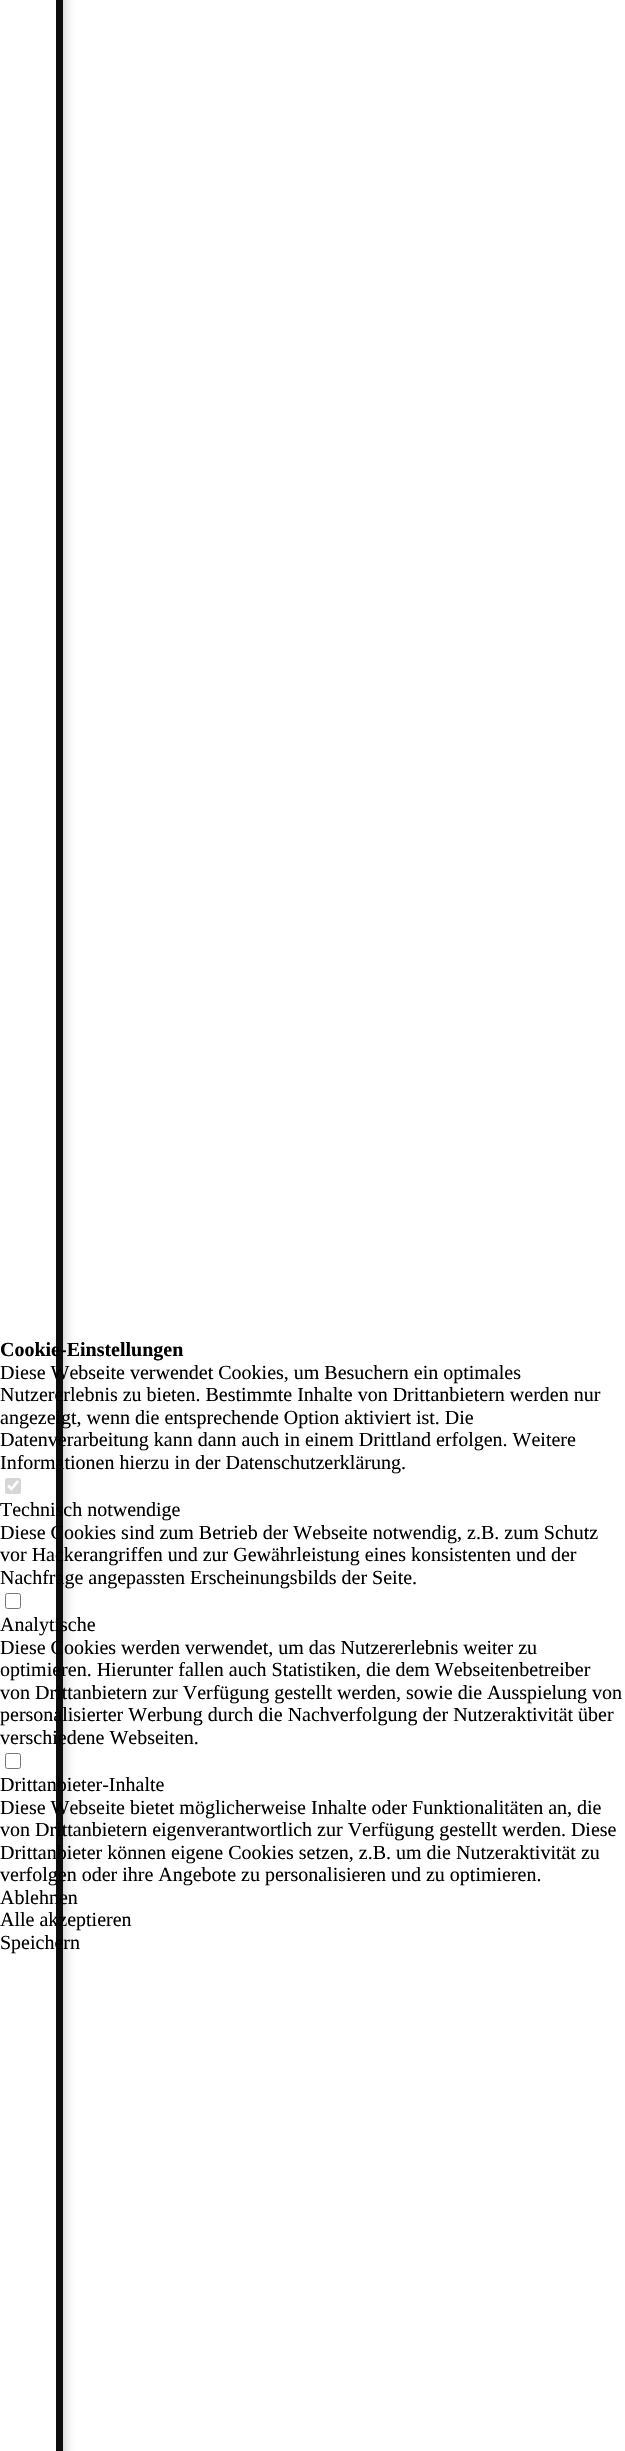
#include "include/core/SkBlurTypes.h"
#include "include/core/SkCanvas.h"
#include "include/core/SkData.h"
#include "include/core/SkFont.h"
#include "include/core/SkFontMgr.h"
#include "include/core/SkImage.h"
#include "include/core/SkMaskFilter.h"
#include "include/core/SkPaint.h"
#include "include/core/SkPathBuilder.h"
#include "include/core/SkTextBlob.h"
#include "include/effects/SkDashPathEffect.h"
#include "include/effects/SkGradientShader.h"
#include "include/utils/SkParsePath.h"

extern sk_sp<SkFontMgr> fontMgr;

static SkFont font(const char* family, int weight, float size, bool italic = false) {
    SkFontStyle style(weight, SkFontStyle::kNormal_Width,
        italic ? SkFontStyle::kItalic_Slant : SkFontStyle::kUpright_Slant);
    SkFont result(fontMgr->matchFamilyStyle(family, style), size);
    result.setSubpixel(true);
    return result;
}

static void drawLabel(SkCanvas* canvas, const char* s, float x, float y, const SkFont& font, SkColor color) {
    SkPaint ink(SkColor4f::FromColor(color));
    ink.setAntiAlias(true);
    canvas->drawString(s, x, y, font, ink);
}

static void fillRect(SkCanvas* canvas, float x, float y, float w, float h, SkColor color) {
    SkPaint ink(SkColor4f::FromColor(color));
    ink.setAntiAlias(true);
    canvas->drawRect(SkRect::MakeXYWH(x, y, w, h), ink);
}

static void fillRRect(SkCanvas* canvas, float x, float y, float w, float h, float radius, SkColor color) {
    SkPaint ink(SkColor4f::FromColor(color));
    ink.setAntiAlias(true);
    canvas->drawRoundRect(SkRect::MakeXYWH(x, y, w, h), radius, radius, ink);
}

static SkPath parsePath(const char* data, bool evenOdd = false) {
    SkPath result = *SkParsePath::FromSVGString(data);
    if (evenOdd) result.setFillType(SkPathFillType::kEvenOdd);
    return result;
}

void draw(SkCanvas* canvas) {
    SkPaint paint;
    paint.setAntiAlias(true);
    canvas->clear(0xFFFFFFFF);
    fillRRect(canvas, 5, 1478, 16, 16, 2.5f, 0xFFD6D6D6);
    paint.setStroke(true);
    paint.setStrokeWidth(2.6f);
    paint.setColor(0xFFFFFFFF);
    canvas->drawPath(parsePath("M8 1485.5L11.5 1489L18 1481"), paint);
    paint.setStrokeWidth(1);
    paint.setColor(0xFF767676);
    canvas->drawRoundRect(SkRect::MakeXYWH(5.5f, 1593.5f, 15, 15), 2, 2, paint);
    canvas->drawRoundRect(SkRect::MakeXYWH(5.5f, 1753.5f, 15, 15), 2, 2, paint);
    canvas->save();
    canvas->clipPath(parsePath("M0 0H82V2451H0ZM-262-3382H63V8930H-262Z", true), true);
    paint.setStroke(false);
    paint.setColor(0xF2B5B5B5);
    paint.setMaskFilter(SkMaskFilter::MakeBlur(kNormal_SkBlurStyle, 6));
    canvas->drawRect(SkRect::MakeXYWH(-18, -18, 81, 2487), paint);
    paint.setMaskFilter(nullptr);
    canvas->restore();
    SkFont font1 = font("Liberation Serif", 700, 20);
    drawLabel(canvas, "Cookie-Einstellungen", 0, 1356, font1, 0xFF000000);
    SkFont font2 = font("Liberation Serif", 400, 20);
    drawLabel(canvas, "Diese Webseite verwendet Cookies, um Besuchern ein optimales", 0, 1379, font2, 0xFF000000);
    drawLabel(canvas, "Nutzererlebnis zu bieten. Bestimmte Inhalte von Drittanbietern werden nur", 0, 1401, font2, 0xFF000000);
    drawLabel(canvas, "angezeigt, wenn die entsprechende Option aktiviert ist. Die", 0, 1424, font2, 0xFF000000);
    drawLabel(canvas, "Datenverarbeitung kann dann auch in einem Drittland erfolgen. Weitere", 0, 1446, font2, 0xFF000000);
    drawLabel(canvas, "Informationen hierzu in der Datenschutzerklärung.", 0, 1469, font2, 0xFF000000);
    drawLabel(canvas, "Technisch notwendige", 0, 1516, font2, 0xFF000000);
    drawLabel(canvas, "Diese Cookies sind zum Betrieb der Webseite notwendig, z.B. zum Schutz", 0, 1539, font2, 0xFF000000);
    drawLabel(canvas, "vor Hackerangriffen und zur Gewährleistung eines konsistenten und der", 0, 1561, font2, 0xFF000000);
    drawLabel(canvas, "Nachfrage angepassten Erscheinungsbilds der Seite.", 0, 1584, font2, 0xFF000000);
    drawLabel(canvas, "Analytische", 0, 1631, font2, 0xFF000000);
    drawLabel(canvas, "Diese Cookies werden verwendet, um das Nutzererlebnis weiter zu", 0, 1654, font2, 0xFF000000);
    drawLabel(canvas, "optimieren. Hierunter fallen auch Statistiken, die dem Webseitenbetreiber", 0, 1676, font2, 0xFF000000);
    drawLabel(canvas, "von Drittanbietern zur Verfügung gestellt werden, sowie die Ausspielung von", 0, 1699, font2, 0xFF000000);
    drawLabel(canvas, "personalisierter Werbung durch die Nachverfolgung der Nutzeraktivität über", 0, 1721, font2, 0xFF000000);
    drawLabel(canvas, "verschiedene Webseiten.", 0, 1744, font2, 0xFF000000);
    drawLabel(canvas, "Drittanbieter-Inhalte", 0, 1791, font2, 0xFF000000);
    drawLabel(canvas, "Diese Webseite bietet möglicherweise Inhalte oder Funktionalitäten an, die", 0, 1814, font2, 0xFF000000);
    drawLabel(canvas, "von Drittanbietern eigenverantwortlich zur Verfügung gestellt werden. Diese", 0, 1836, font2, 0xFF000000);
    drawLabel(canvas, "Drittanbieter können eigene Cookies setzen, z.B. um die Nutzeraktivität zu", 0, 1859, font2, 0xFF000000);
    drawLabel(canvas, "verfolgen oder ihre Angebote zu personalisieren und zu optimieren.", 0, 1881, font2, 0xFF000000);
    drawLabel(canvas, "Ablehnen", 0, 1904, font2, 0xFF000000);
    drawLabel(canvas, "Alle akzeptieren", 0, 1926, font2, 0xFF000000);
    drawLabel(canvas, "Speichern", 0, 1949, font2, 0xFF000000);
    fillRect(canvas, 56, 0, 7, 2451, 0xF2000000);
}
